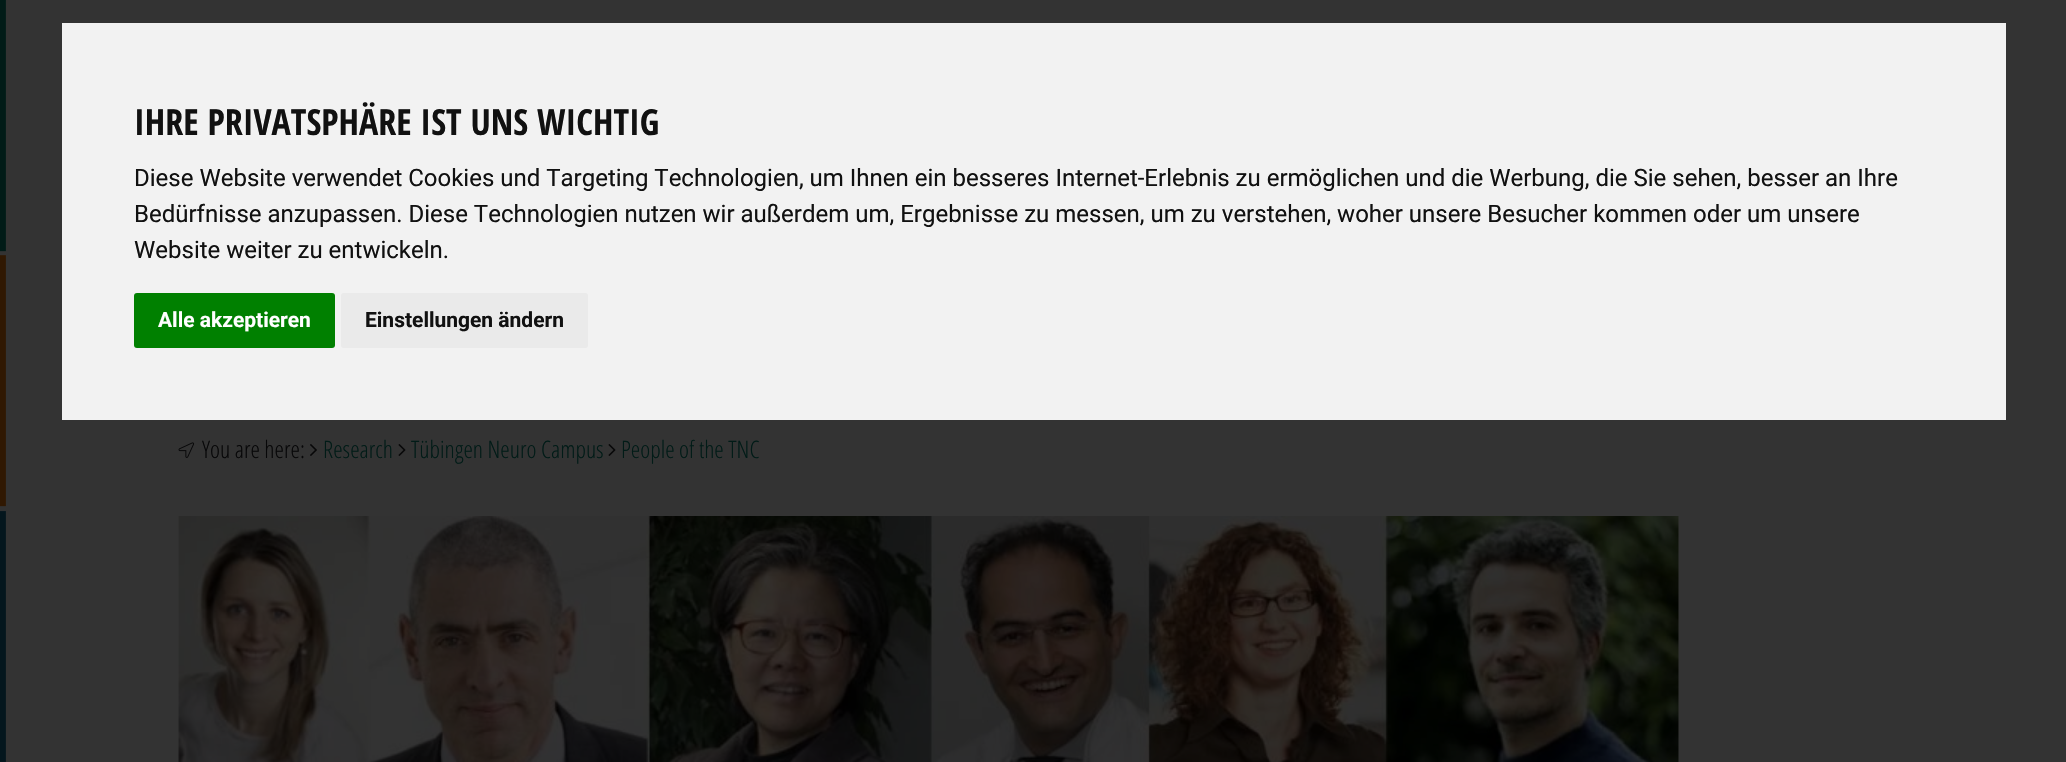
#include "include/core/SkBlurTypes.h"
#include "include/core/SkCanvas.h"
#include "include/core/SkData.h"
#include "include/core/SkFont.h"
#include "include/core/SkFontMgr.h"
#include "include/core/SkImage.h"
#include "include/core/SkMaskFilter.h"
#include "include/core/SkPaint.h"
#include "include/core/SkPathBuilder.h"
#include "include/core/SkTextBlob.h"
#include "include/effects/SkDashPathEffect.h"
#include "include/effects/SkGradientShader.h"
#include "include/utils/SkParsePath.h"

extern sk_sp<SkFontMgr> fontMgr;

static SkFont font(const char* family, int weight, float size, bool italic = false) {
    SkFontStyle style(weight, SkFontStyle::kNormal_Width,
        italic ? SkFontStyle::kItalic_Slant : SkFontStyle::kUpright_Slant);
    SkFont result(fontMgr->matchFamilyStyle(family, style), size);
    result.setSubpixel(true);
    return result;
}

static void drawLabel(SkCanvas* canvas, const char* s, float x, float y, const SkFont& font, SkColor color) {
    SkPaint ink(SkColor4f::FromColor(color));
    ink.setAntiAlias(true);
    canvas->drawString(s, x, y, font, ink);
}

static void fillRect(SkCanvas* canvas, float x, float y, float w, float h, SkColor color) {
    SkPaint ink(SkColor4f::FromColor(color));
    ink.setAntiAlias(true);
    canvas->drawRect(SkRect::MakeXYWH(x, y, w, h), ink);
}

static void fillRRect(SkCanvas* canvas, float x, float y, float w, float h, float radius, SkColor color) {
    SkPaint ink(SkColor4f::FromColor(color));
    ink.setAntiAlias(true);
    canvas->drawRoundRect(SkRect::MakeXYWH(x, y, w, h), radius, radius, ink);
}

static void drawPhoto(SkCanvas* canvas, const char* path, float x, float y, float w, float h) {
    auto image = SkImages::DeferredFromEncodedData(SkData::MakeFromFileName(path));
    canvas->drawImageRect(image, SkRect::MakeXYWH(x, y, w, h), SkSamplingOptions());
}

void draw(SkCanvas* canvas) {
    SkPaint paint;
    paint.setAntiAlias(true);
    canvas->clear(0xFF333333);
    drawPhoto(canvas, "assets/img1.png", 0, 0, 6, 762);
    fillRect(canvas, 62, 23, 1944, 397, 0xFFF2F2F2);
    SkFont font1 = font("Open Sans Condensed", 700, 36);
    drawLabel(canvas, "IHRE PRIVATSPHÄRE IST UNS WICHTIG", 134, 135, font1, 0xFF111111);
    SkFont font2 = font("Roboto", 400, 24);
    drawLabel(canvas, "Diese Website verwendet Cookies und Targeting Technologien, um Ihnen ein besseres Internet-Erlebnis zu ermöglichen und die Werbung, die Sie sehen, besser an Ihre", 134, 186, font2, 0xFF111111);
    drawLabel(canvas, "Bedürfnisse anzupassen. Diese Technologien nutzen wir außerdem um, Ergebnisse zu messen, um zu verstehen, woher unsere Besucher kommen oder um unsere", 134, 222, font2, 0xFF111111);
    drawLabel(canvas, "Website weiter zu entwickeln.", 134, 258, font2, 0xFF111111);
    fillRRect(canvas, 134, 293, 201, 55, 3, 0xFF008000);
    SkFont font3 = font("Roboto", 700, 21);
    drawLabel(canvas, "Alle akzeptieren", 158, 327, font3, 0xFFFFFFFF);
    fillRRect(canvas, 341, 293, 247, 55, 3, 0xFFEAEAEA);
    drawLabel(canvas, "Einstellungen ändern", 365, 327, font3, 0xFF111111);
    drawPhoto(canvas, "assets/img2.png", 178, 442, 17, 16);
    SkFont font4 = font("Open Sans", 300, 24);
    drawLabel(canvas, "You are here:", 202, 458, font4, 0xFF070708);
    drawPhoto(canvas, "assets/img3.png", 310, 444, 7, 12);
    drawLabel(canvas, "Research", 323, 458, font4, 0xFF011B17);
    drawPhoto(canvas, "assets/img4.png", 398, 444, 8, 12);
    drawLabel(canvas, "Tübingen Neuro Campus", 411, 458, font4, 0xFF011B17);
    drawPhoto(canvas, "assets/img4.png", 608, 444, 8, 12);
    drawLabel(canvas, "People of the TNC", 621, 458, font4, 0xFF011B17);
    drawPhoto(canvas, "assets/img5.png", 178, 516, 1501, 246);
}
